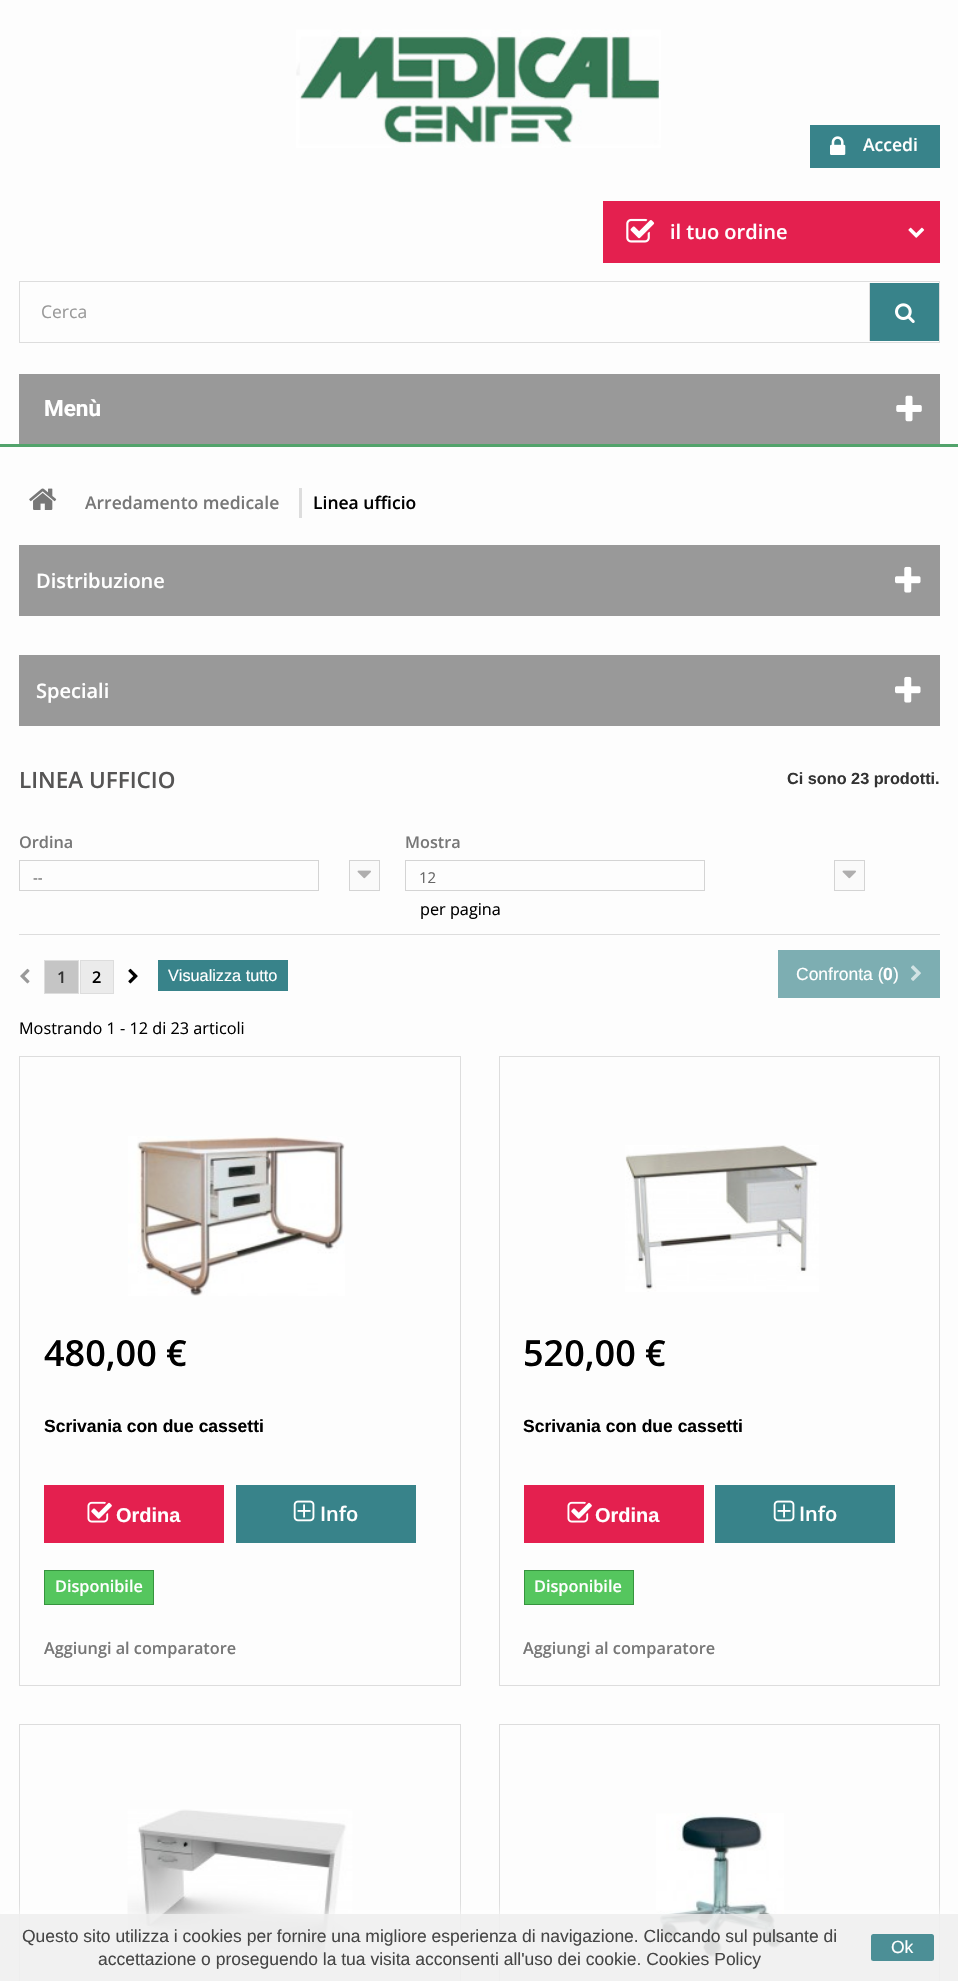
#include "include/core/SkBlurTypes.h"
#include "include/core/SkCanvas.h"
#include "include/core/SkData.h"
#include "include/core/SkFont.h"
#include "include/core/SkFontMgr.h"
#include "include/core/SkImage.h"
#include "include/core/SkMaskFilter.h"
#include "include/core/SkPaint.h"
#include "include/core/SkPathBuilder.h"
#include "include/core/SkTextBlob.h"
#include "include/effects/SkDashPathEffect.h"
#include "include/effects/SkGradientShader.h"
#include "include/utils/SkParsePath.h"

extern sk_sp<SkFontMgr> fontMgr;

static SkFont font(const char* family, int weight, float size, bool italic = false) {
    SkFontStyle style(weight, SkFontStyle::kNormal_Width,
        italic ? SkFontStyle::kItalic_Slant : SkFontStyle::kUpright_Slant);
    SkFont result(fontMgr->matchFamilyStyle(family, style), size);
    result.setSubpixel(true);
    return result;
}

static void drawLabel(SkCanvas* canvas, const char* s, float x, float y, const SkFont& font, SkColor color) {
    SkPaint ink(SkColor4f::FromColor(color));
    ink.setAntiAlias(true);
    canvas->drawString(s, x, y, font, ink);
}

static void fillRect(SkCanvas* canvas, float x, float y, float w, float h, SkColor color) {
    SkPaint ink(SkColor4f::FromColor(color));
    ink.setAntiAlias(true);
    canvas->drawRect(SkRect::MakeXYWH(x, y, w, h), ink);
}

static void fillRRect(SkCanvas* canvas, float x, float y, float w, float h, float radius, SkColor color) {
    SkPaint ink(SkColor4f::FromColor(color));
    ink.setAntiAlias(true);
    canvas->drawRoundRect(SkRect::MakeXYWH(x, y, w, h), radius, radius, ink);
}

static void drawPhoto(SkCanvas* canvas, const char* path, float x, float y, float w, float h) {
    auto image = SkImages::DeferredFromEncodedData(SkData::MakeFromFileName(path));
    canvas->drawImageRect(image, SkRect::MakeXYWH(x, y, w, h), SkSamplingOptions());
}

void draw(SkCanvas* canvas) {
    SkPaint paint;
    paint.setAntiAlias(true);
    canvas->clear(0xFFFDFDFD);
    drawPhoto(canvas, "assets/img1.png", 296, 29, 365, 119);
    fillRect(canvas, 810, 125, 130, 43, 0xFF38838A);
    drawPhoto(canvas, "assets/img2.png", 830, 136, 16, 19);
    SkFont font1 = font("Open Sans", 600, 17.5f);
    drawLabel(canvas, "Accedi", 863, 151, font1, 0xFFFFFFFF);
    fillRect(canvas, 603, 201, 337, 62, 0xFFE4204F);
    drawPhoto(canvas, "assets/img3.png", 626, 218, 29, 25);
    SkFont font2 = font("Open Sans", 600, 20);
    drawLabel(canvas, "il tuo ordine", 670, 239, font2, 0xFFFFFFFF);
    drawPhoto(canvas, "assets/img4.png", 908, 227, 17, 11);
    paint.setStroke(true);
    paint.setStrokeWidth(1);
    paint.setColor(0xFFDDDDDD);
    canvas->drawRect(SkRect::MakeXYWH(19.5f, 281.5f, 920, 61), paint);
    SkFont font3 = font("Open Sans", 400, 17.5f);
    drawLabel(canvas, "Cerca", 41, 318, font3, 0xFF999999);
    fillRect(canvas, 870, 283, 69, 58, 0xFF38838A);
    fillRect(canvas, 869, 283, 1, 58, 0xFFDDDDDD);
    drawPhoto(canvas, "assets/img5.png", 895, 303, 20, 20);
    fillRect(canvas, 19, 374, 921, 70, 0xFF999999);
    SkFont font4 = font("Roboto", 700, 22.5f);
    drawLabel(canvas, "Menù", 44, 416, font4, 0xFFFFFFFF);
    drawPhoto(canvas, "assets/img6.png", 896, 395, 26, 27);
    fillRect(canvas, 0, 444, 958, 3, 0xFF52A36B);
    drawPhoto(canvas, "assets/img7.png", 29, 488, 28, 22);
    fillRect(canvas, 299, 488, 3, 30, 0xFFDDDDDD);
    drawLabel(canvas, "Arredamento medicale", 85, 509, font1, 0xFF777777);
    drawLabel(canvas, "Linea ufficio", 313, 509, font1, 0xFF000000);
    fillRect(canvas, 19, 545, 921, 71, 0xFF999999);
    drawLabel(canvas, "Distribuzione", 36, 588, font2, 0xFFFFFFFF);
    drawPhoto(canvas, "assets/img8.png", 895, 566, 26, 27);
    fillRect(canvas, 19, 655, 921, 71, 0xFF999999);
    drawLabel(canvas, "Speciali", 36, 698, font2, 0xFFFFFFFF);
    drawPhoto(canvas, "assets/img8.png", 895, 676, 26, 27);
    SkFont font5 = font("Open Sans", 600, 22.5f);
    drawLabel(canvas, "LINEA UFFICIO", 19, 788, font5, 0xFF555454);
    SkFont font6 = font("Liberation Sans", 700, 16.25f);
    drawLabel(canvas, "Ci sono 23 prodotti.", 787, 784, font6, 0xFF333333);
    fillRect(canvas, 19, 934, 921, 1, 0xFFDDDDDD);
    SkFont font7 = font("Open Sans", 600, 16.25f);
    drawLabel(canvas, "Ordina", 19, 848, font7, 0xFF777777);
    paint.setColor(0xFFD4D4D4);
    canvas->drawRect(SkRect::MakeXYWH(19.5f, 860.5f, 299, 30), paint);
    SkFont font8 = font("Open Sans", 400, 15);
    drawLabel(canvas, "--", 33, 883, font8, 0xFF666666);
    paint.setStroke(false);
    paint.setColor(0xFFFAFAFA);
    canvas->drawRect(SkRect::MakeXYWH(349.5f, 860.5f, 30, 30), paint);
    paint.setStroke(true);
    paint.setColor(0xFFD4D4D4);
    canvas->drawRect(SkRect::MakeXYWH(349.5f, 860.5f, 30, 30), paint);
    drawPhoto(canvas, "assets/img9.png", 357, 870, 14, 9);
    drawLabel(canvas, "Mostra", 405, 848, font7, 0xFF777777);
    canvas->drawRect(SkRect::MakeXYWH(405.5f, 860.5f, 299, 30), paint);
    drawLabel(canvas, "12", 419, 883, font8, 0xFF666666);
    paint.setStroke(false);
    paint.setColor(0xFFFAFAFA);
    canvas->drawRect(SkRect::MakeXYWH(834.5f, 860.5f, 30, 30), paint);
    paint.setStroke(true);
    paint.setColor(0xFFD4D4D4);
    canvas->drawRect(SkRect::MakeXYWH(834.5f, 860.5f, 30, 30), paint);
    drawPhoto(canvas, "assets/img9.png", 842, 870, 14, 9);
    SkFont font9 = font("Open Sans", 400, 16.25f);
    drawLabel(canvas, "per pagina", 420, 915, font9, 0xFF000000);
    drawPhoto(canvas, "assets/img10.png", 20, 968, 10, 16);
    paint.setColor(0xFFDDDDDD);
    canvas->drawRect(SkRect::MakeXYWH(44.5f, 960.5f, 34, 33), paint);
    fillRect(canvas, 45, 961, 33, 32, 0xFFC5C5C5);
    drawLabel(canvas, "1", 57, 983, font7, 0xFF333333);
    canvas->drawRect(SkRect::MakeXYWH(80.5f, 960.5f, 33, 33), paint);
    fillRect(canvas, 81, 961, 32, 32, 0xFFEBEBEB);
    drawLabel(canvas, "2", 92, 983, font7, 0xFF000000);
    drawPhoto(canvas, "assets/img11.png", 128, 968, 10, 16);
    fillRect(canvas, 158, 960, 130, 31, 0xFF38838A);
    SkFont font10 = font("Liberation Sans", 400, 16.25f);
    drawLabel(canvas, "Visualizza tutto", 168, 981, font10, 0xFFFFFFFF);
    fillRect(canvas, 778, 950, 162, 48, 0xFF7DAEB2);
    SkFont font11 = font("Liberation Sans", 400, 17.5f);
    drawLabel(canvas, "Confronta (", 796, 980, font11, 0xFFFFFFFF);
    SkFont font12 = font("Liberation Sans", 700, 17.5f);
    drawLabel(canvas, "0", 883, 980, font12, 0xFFFFFFFF);
    drawLabel(canvas, ")", 893, 980, font11, 0xFFFFFFFF);
    drawPhoto(canvas, "assets/img12.png", 911, 965, 10, 16);
    drawLabel(canvas, "Mostrando 1 - 12 di 23 articoli", 19, 1034, font9, 0xFF000000);
    canvas->drawRect(SkRect::MakeXYWH(19.5f, 1056.5f, 441, 629), paint);
    drawPhoto(canvas, "assets/img13.png", 128, 1136, 217, 160);
    SkFont font13 = font("Open Sans", 600, 36);
    drawLabel(canvas, "480,00 €", 44, 1366, font13, 0xFF000000);
    drawLabel(canvas, "Scrivania con due cassetti", 44, 1432, font12, 0xFF000000);
    fillRect(canvas, 44, 1485, 180, 58, 0xFFE4204F);
    drawPhoto(canvas, "assets/img14.png", 87, 1501, 25, 22);
    SkFont font14 = font("Liberation Sans", 700, 20);
    drawLabel(canvas, "Ordina", 116, 1522, font14, 0xFFFFFFFF);
    fillRect(canvas, 236, 1485, 180, 58, 0xFF38838A);
    drawPhoto(canvas, "assets/img15.png", 293, 1500, 22, 22);
    drawLabel(canvas, "Info", 320, 1521, font2, 0xFFFFFFFF);
    paint.setStroke(false);
    paint.setColor(0xFF55C65E);
    canvas->drawRect(SkRect::MakeXYWH(44.5f, 1570.5f, 109, 34), paint);
    paint.setStroke(true);
    paint.setColor(0xFF36943E);
    canvas->drawRect(SkRect::MakeXYWH(44.5f, 1570.5f, 109, 34), paint);
    drawLabel(canvas, "Disponibile", 55, 1592, font7, 0xFFFFFFFF);
    drawLabel(canvas, "Aggiungi al comparatore", 44, 1654, font7, 0xFF777777);
    paint.setColor(0xFFDDDDDD);
    canvas->drawRect(SkRect::MakeXYWH(499.5f, 1056.5f, 440, 629), paint);
    drawPhoto(canvas, "assets/img16.png", 625, 1145, 194, 147);
    drawLabel(canvas, "520,00 €", 523, 1366, font13, 0xFF000000);
    drawLabel(canvas, "Scrivania con due cassetti", 523, 1432, font12, 0xFF000000);
    fillRect(canvas, 524, 1485, 180, 58, 0xFFE4204F);
    drawPhoto(canvas, "assets/img14.png", 567, 1501, 25, 22);
    drawLabel(canvas, "Ordina", 595, 1522, font14, 0xFFFFFFFF);
    fillRect(canvas, 715, 1485, 180, 58, 0xFF38838A);
    drawPhoto(canvas, "assets/img15.png", 773, 1500, 22, 22);
    drawLabel(canvas, "Info", 799, 1521, font2, 0xFFFFFFFF);
    paint.setStroke(false);
    paint.setColor(0xFF55C65E);
    canvas->drawRect(SkRect::MakeXYWH(524.5f, 1570.5f, 109, 34), paint);
    paint.setStroke(true);
    paint.setColor(0xFF36943E);
    canvas->drawRect(SkRect::MakeXYWH(524.5f, 1570.5f, 109, 34), paint);
    drawLabel(canvas, "Disponibile", 534, 1592, font7, 0xFFFFFFFF);
    drawLabel(canvas, "Aggiungi al comparatore", 523, 1654, font7, 0xFF777777);
    paint.setColor(0xFFDDDDDD);
    canvas->drawRect(SkRect::MakeXYWH(19.5f, 1724.5f, 441, 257), paint);
    drawPhoto(canvas, "assets/img17.png", 127, 1809, 226, 158);
    canvas->drawRect(SkRect::MakeXYWH(499.5f, 1724.5f, 440, 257), paint);
    drawPhoto(canvas, "assets/img18.png", 656, 1813, 128, 146);
    canvas->save();
    canvas->clipRect(SkRect::MakeXYWH(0, 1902, 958, 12));
    paint.setStroke(false);
    paint.setColor(0xE6FFFFFF);
    paint.setMaskFilter(SkMaskFilter::MakeBlur(kNormal_SkBlurStyle, 6));
    canvas->drawRect(SkRect::MakeXYWH(0, 1914, 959, 67), paint);
    paint.setMaskFilter(nullptr);
    canvas->restore();
    fillRect(canvas, 0, 1914, 958, 67, 0xE6F0F0F0);
    drawLabel(canvas, "Questo sito utilizza i cookies per fornire una migliore esperienza di navigazione. Cliccando sul pulsante di", 22, 1942, font11, 0xFF464646);
    drawLabel(canvas, "accettazione o proseguendo la tua visita acconsenti all'uso dei cookie. Cookies Policy", 98, 1965, font11, 0xFF464646);
    fillRRect(canvas, 871, 1934, 63, 27, 2.5f, 0xFF4C8F96);
    drawLabel(canvas, "Ok", 891, 1953, font11, 0xFFFFFFFF);
}
